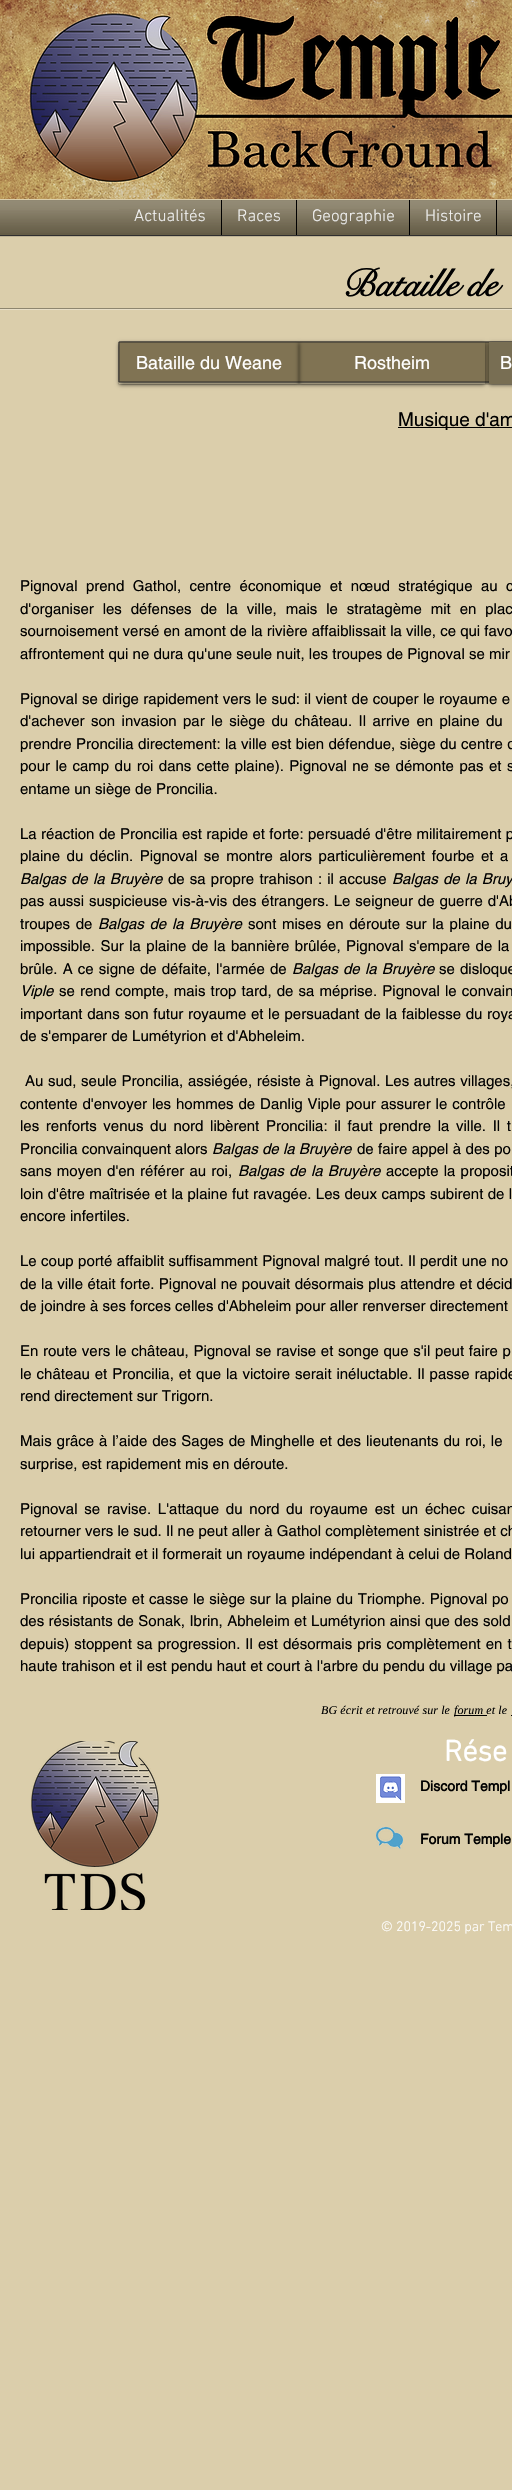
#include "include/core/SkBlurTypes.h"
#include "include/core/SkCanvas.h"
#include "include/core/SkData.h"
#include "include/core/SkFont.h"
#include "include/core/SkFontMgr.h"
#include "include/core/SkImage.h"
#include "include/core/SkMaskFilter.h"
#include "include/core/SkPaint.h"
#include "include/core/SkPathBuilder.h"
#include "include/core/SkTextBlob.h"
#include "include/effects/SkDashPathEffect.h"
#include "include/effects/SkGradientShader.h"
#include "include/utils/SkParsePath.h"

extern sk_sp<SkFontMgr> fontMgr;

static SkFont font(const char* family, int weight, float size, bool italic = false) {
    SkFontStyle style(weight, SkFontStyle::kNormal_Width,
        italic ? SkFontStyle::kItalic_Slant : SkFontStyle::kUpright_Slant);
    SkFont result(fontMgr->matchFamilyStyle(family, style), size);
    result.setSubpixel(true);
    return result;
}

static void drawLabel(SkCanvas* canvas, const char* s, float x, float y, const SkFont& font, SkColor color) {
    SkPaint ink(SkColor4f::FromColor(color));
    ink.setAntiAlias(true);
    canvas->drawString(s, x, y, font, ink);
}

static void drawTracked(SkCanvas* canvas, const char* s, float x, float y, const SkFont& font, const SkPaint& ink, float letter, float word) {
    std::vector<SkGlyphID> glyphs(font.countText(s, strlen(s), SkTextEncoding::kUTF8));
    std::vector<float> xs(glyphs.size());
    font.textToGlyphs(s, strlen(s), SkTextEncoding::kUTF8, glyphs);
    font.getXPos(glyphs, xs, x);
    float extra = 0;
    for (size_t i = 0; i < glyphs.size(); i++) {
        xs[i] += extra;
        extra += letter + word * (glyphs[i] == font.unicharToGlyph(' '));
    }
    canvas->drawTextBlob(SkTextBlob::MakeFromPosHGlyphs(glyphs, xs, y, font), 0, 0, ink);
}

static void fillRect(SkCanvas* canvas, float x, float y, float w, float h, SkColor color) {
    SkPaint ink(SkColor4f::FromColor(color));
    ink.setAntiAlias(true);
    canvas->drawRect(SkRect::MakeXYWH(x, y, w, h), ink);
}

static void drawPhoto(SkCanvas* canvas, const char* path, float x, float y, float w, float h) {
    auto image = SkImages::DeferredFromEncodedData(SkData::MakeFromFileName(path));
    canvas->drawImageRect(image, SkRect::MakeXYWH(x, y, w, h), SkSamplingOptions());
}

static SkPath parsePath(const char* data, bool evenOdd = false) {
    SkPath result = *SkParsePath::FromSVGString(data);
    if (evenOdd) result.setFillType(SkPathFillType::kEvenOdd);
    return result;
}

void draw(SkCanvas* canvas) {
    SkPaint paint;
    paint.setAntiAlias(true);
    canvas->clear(0xFFDBCEAB);
    drawPhoto(canvas, "assets/img1.png", 0, 0, 512, 199);
    paint.setColor(0xFF2F2E2E);
    paint.setMaskFilter(SkMaskFilter::MakeBlur(kNormal_SkBlurStyle, 0.5f));
    canvas->drawRect(SkRect::MakeXYWH(0, 201, 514, 35), paint);
    paint.setMaskFilter(nullptr);
    fillRect(canvas, 0, 200, 221, 35, 0xFF786E53);
    drawPhoto(canvas, "assets/img2.png", 0, 200, 119, 33);
    drawPhoto(canvas, "assets/img3.png", 0, 210, 119, 25);
    SkFont font1 = font("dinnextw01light", 300, 17);
    drawLabel(canvas, "Actualités", 134, 221, font1, 0xFFFFFFFF);
    drawPhoto(canvas, "assets/img4.png", 119, 200, 102, 33);
    drawPhoto(canvas, "assets/img5.png", 119, 209, 102, 26);
    fillRect(canvas, 222, 200, 74, 35, 0xFF786E53);
    fillRect(canvas, 221, 200, 1, 35, 0xFF000000);
    drawLabel(canvas, "Races", 237, 221, font1, 0xFFFFFFFF);
    drawPhoto(canvas, "assets/img6.png", 222, 200, 74, 33);
    drawPhoto(canvas, "assets/img7.png", 222, 209, 74, 26);
    fillRect(canvas, 297, 200, 112, 35, 0xFF786E53);
    fillRect(canvas, 296, 200, 1, 35, 0xFF000000);
    drawLabel(canvas, "Geographie", 312, 221, font1, 0xFFFFFFFF);
    drawPhoto(canvas, "assets/img8.png", 297, 200, 112, 33);
    drawPhoto(canvas, "assets/img9.png", 297, 209, 112, 26);
    fillRect(canvas, 410, 200, 86, 35, 0xFF786E53);
    fillRect(canvas, 409, 200, 1, 35, 0xFF000000);
    drawLabel(canvas, "Histoire", 425, 221, font1, 0xFFFFFFFF);
    drawPhoto(canvas, "assets/img10.png", 410, 200, 86, 33);
    drawPhoto(canvas, "assets/img11.png", 410, 209, 86, 26);
    fillRect(canvas, 497, 200, 15, 35, 0xFF786E53);
    fillRect(canvas, 496, 200, 1, 35, 0xFF000000);
    drawPhoto(canvas, "assets/img12.png", 497, 200, 15, 33);
    drawPhoto(canvas, "assets/img13.png", 497, 210, 15, 25);
    SkFont font2 = font("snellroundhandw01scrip", 700, 38);
    drawLabel(canvas, "Bataille de", 342, 296, font2, 0xFF000000);
    drawPhoto(canvas, "assets/img14.png", 118, 341, 394, 44);
    canvas->save();
    canvas->clipPath(parsePath("M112 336H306V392H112ZM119 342H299V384H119Z", true), true);
    paint.setColor(0x99000000);
    paint.setMaskFilter(SkMaskFilter::MakeBlur(kNormal_SkBlurStyle, 2));
    canvas->drawRect(SkRect::MakeXYWH(119, 343, 180, 42), paint);
    paint.setMaskFilter(nullptr);
    canvas->restore();
    SkFont font3 = font("helvetica", 400, 18);
    drawLabel(canvas, "Bataille du Weane", 136, 369, font3, 0xFFFFFFFF);
    paint.setMaskFilter(SkMaskFilter::MakeBlur(kNormal_SkBlurStyle, 2));
    canvas->drawRect(SkRect::MakeXYWH(489, 343, 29, 42), paint);
    paint.setMaskFilter(nullptr);
    fillRect(canvas, 489, 342, 23, 42, 0xFF786E53);
    canvas->save();
    canvas->clipPath(parsePath("M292 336H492V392H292ZM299 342H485V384H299Z", true), true);
    paint.setMaskFilter(SkMaskFilter::MakeBlur(kNormal_SkBlurStyle, 2));
    canvas->drawRect(SkRect::MakeXYWH(299, 343, 186, 42), paint);
    paint.setMaskFilter(nullptr);
    canvas->restore();
    drawLabel(canvas, "Rostheim", 354, 369, font3, 0xFFFFFFFF);
    drawLabel(canvas, "B", 500, 369, font3, 0xFFFFFFFF);
    fillRect(canvas, 398, 427, 114, 1, 0xFF000000);
    SkFont font4 = font("helvetica", 400, 19);
    drawLabel(canvas, "Musique d'am", 398, 426, font4, 0xFF000000);
    SkFont font5 = font("helvetica", 400, 15);
    paint.setColor(0xFF000000);
    drawTracked(canvas, "Pignoval prend Gathol, centre économique et nœud stratégique au c", 20, 591, font5, paint, 0, 4.25f);
    drawTracked(canvas, "d'organiser les défenses de la ville, mais le stratagème mit en plac", 20, 614, font5, paint, 0, 4.75f);
    drawLabel(canvas, "sournoisement versé en amont de la rivière affaiblissait la ville, ce qui favo", 20, 636, font5, 0xFF000000);
    drawLabel(canvas, "affrontement qui ne dura qu'une seule nuit, les troupes de Pignoval se mir", 20, 659, font5, 0xFF000000);
    drawTracked(canvas, "Pignoval se dirige rapidement vers le sud: il vient de couper le royaume e", 20, 704, font5, paint, 0, 0.25f);
    drawTracked(canvas, "d'achever son invasion par le siège du château. Il arrive en plaine du", 20, 726, font5, paint, 0, 2.25f);
    drawTracked(canvas, "prendre Proncilia directement: la ville est bien défendue, siège du centre d", 20, 749, font5, paint, 0, 0.25f);
    drawTracked(canvas, "pour le camp du roi dans cette plaine). Pignoval ne se démonte pas et s", 20, 771, font5, paint, 0, 1.25f);
    drawLabel(canvas, "entame un siège de Proncilia.", 20, 794, font5, 0xFF000000);
    drawTracked(canvas, "La réaction de Proncilia est rapide et forte: persuadé d'être militairement p", 20, 839, font5, paint, 0, 0.25f);
    drawTracked(canvas, "plaine du déclin. Pignoval se montre alors particulièrement fourbe et a", 20, 861, font5, paint, 0, 2.4f);
    SkFont font6 = font("helvetica", 400, 15, true);
    drawTracked(canvas, "Balgas de la Bruyère", 20, 884, font6, paint, 0, 1);
    drawTracked(canvas, "de sa propre trahison : il accuse", 168, 884, font5, paint, 0, 1);
    drawTracked(canvas, "Balgas de la Bruy", 392, 884, font6, paint, 0, 1);
    drawTracked(canvas, "pas aussi suspicieuse vis-à-vis des étrangers. Le seigneur de guerre d'Ab", 20, 906, font5, paint, 0, 0.75f);
    drawTracked(canvas, "troupes de", 20, 929, font5, paint, 0, 1.5f);
    drawTracked(canvas, "Balgas de la Bruyère", 98, 929, font6, paint, 0, 1.5f);
    drawTracked(canvas, "sont mises en déroute sur la plaine du", 248, 929, font5, paint, 0, 1.5f);
    drawTracked(canvas, "impossible. Sur la plaine de la bannière brûlée, Pignoval s'empare de la", 20, 951, font5, paint, 0, 1.25f);
    drawTracked(canvas, "brûle. A ce signe de défaite, l'armée de", 20, 974, font5, paint, 0, 1);
    drawTracked(canvas, "Balgas de la Bruyère", 292, 974, font6, paint, 0, 1);
    drawTracked(canvas, "se disloque", 439, 974, font5, paint, 0, 1);
    drawLabel(canvas, "Viple", 20, 996, font6, 0xFF000000);
    drawTracked(canvas, "se rend compte, mais trop tard, de sa méprise. Pignoval le convain", 59, 996, font5, paint, 0, 1);
    drawTracked(canvas, "important dans son futur royaume et le persuadant de la faiblesse du roya", 20, 1019, font5, paint, 0, 0.5f);
    drawLabel(canvas, "de s'emparer de Lumétyrion et d'Abheleim.", 20, 1041, font5, 0xFF000000);
    drawTracked(canvas, "Au sud, seule Proncilia, assiégée, résiste à Pignoval. Les autres villages,", 25, 1086, font5, paint, 0, 0.5f);
    drawTracked(canvas, "contente d'envoyer les hommes de Danlig Viple pour assurer le contrôle", 20, 1109, font5, paint, 0, 0.75f);
    drawTracked(canvas, "les renforts venus du nord libèrent Proncilia: il faut prendre la ville. Il t", 20, 1131, font5, paint, 0, 2.5f);
    drawLabel(canvas, "Proncilia convainquent alors", 20, 1154, font5, 0xFF000000);
    drawLabel(canvas, "Balgas de la Bruyère", 212, 1154, font6, 0xFF000000);
    drawTracked(canvas, "de faire appel à des po", 357, 1154, font5, paint, 0, 0.25f);
    drawTracked(canvas, "sans moyen d'en référer au roi,", 20, 1176, font5, paint, 0, 1);
    drawTracked(canvas, "Balgas de la Bruyère", 238, 1176, font6, paint, 0, 1);
    drawTracked(canvas, "accepte la proposit", 386, 1176, font5, paint, 0, 1);
    drawTracked(canvas, "loin d'être maîtrisée et la plaine fut ravagée. Les deux camps subirent de l", 20, 1199, font5, paint, 0, 0.25f);
    drawLabel(canvas, "encore infertiles.", 20, 1221, font5, 0xFF000000);
    drawTracked(canvas, "Le coup porté affaiblit suffisamment Pignoval malgré tout. Il perdit une no", 20, 1266, font5, paint, 0, 0.25f);
    drawTracked(canvas, "de la ville était forte. Pignoval ne pouvait désormais plus attendre et décid", 20, 1289, font5, paint, 0, 0.25f);
    drawLabel(canvas, "de joindre à ses forces celles d'Abheleim pour aller renverser directement", 20, 1311, font5, 0xFF000000);
    drawTracked(canvas, "En route vers le château, Pignoval se ravise et songe que s'il peut faire p", 20, 1356, font5, paint, 0, 0.5f);
    drawTracked(canvas, "le château et Proncilia, et que la victoire serait inéluctable. Il passe rapide", 20, 1379, font5, paint, 0, 0.7f);
    drawLabel(canvas, "rend directement sur Trigorn.", 20, 1401, font5, 0xFF000000);
    drawTracked(canvas, "Mais grâce à l’aide des Sages de Minghelle et des lieutenants du roi, le", 20, 1446, font5, paint, 0, 0.75f);
    drawLabel(canvas, "surprise, est rapidement mis en déroute.", 20, 1469, font5, 0xFF000000);
    drawTracked(canvas, "Pignoval se ravise. L'attaque du nord du royaume est un échec cuisan", 20, 1514, font5, paint, 0, 2.6f);
    drawLabel(canvas, "retourner vers le sud. Il ne peut aller à Gathol complètement sinistrée et ch", 20, 1536, font5, 0xFF000000);
    drawLabel(canvas, "lui appartiendrait et il formerait un royaume indépendant à celui de Roland", 20, 1559, font5, 0xFF000000);
    drawTracked(canvas, "Proncilia riposte et casse le siège sur la plaine du Triomphe. Pignoval po", 20, 1604, font5, paint, 0, 0.5f);
    drawTracked(canvas, "des résistants de Sonak, Ibrin, Abheleim et Lumétyrion ainsi que des sold", 20, 1626, font5, paint, 0, 0.25f);
    drawTracked(canvas, "depuis) stoppent sa progression. Il est désormais pris complètement en t", 20, 1649, font5, paint, 0, 0.9f);
    drawLabel(canvas, "haute trahison et il est pendu haut et court à l'arbre du pendu du village pa", 20, 1671, font5, 0xFF000000);
    SkFont font7 = font("Liberation Serif", 400, 12, true);
    drawTracked(canvas, "BG écrit et retrouvé sur le", 321, 1714, font7, paint, 0.1f, 0);
    fillRect(canvas, 454, 1715, 33, 1, 0xFF000000);
    drawTracked(canvas, "forum et le", 454, 1714, font7, paint, 0.1f, 0);
    fillRect(canvas, 511, 1715, 1, 1, 0xFF000000);
    fillRect(canvas, 0, 308, 512, 1, 0xFF8E866F);
    fillRect(canvas, 0, 309, 512, 1, 0xFFE8DFC8);
    drawPhoto(canvas, "assets/img15.png", 31, 1741, 128, 169);
    drawPhoto(canvas, "assets/img16.png", 376, 1774, 29, 29);
    SkFont font8 = font("dinnextw01light", 700, 30);
    drawLabel(canvas, "Rése", 444, 1761, font8, 0xFFFFFFFF);
    SkFont font9 = font("helvetica", 700, 14);
    drawLabel(canvas, "Discord Templ", 420, 1791, font9, 0xFF000000);
    drawPhoto(canvas, "assets/img17.png", 376, 1826, 27, 23);
    drawLabel(canvas, "Forum Temple", 420, 1844, font9, 0xFF000000);
    SkFont font10 = font("dinnextw01light", 300, 14);
    drawLabel(canvas, "© 2019-2025 par Tem", 381, 1931, font10, 0xFFFFFFFF);
}
